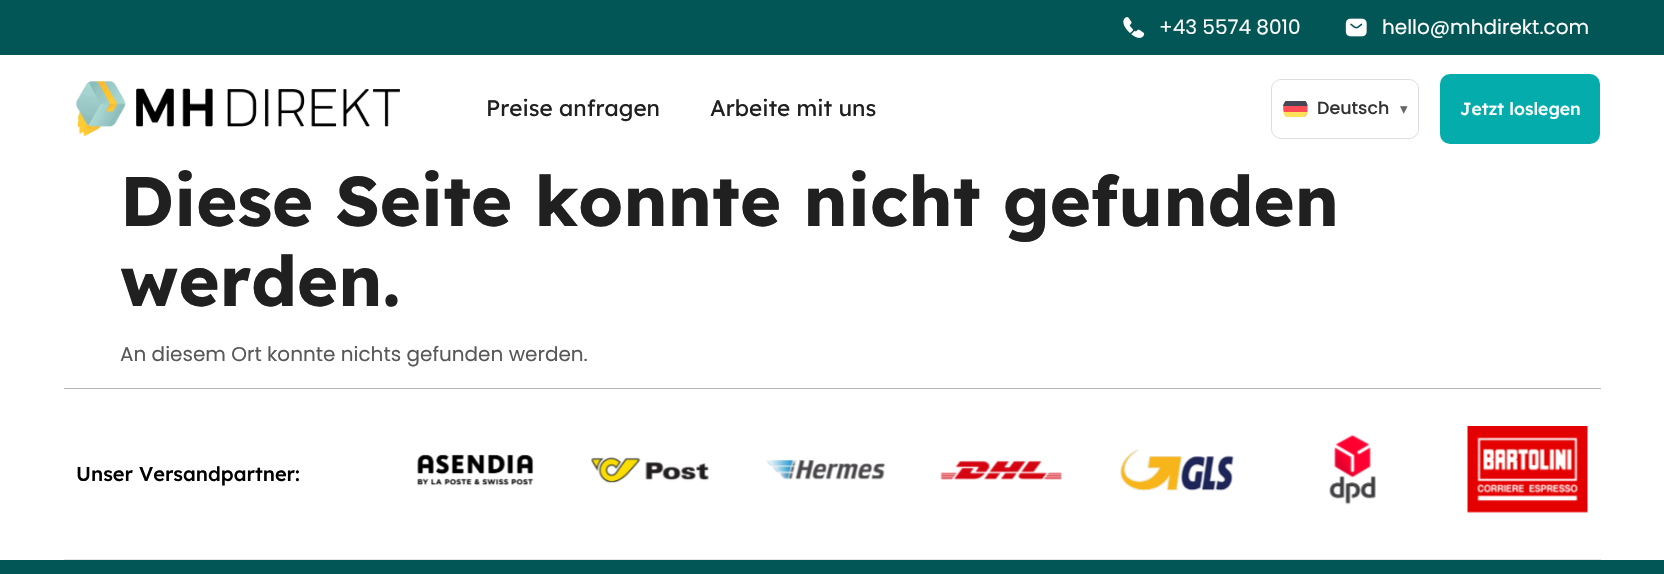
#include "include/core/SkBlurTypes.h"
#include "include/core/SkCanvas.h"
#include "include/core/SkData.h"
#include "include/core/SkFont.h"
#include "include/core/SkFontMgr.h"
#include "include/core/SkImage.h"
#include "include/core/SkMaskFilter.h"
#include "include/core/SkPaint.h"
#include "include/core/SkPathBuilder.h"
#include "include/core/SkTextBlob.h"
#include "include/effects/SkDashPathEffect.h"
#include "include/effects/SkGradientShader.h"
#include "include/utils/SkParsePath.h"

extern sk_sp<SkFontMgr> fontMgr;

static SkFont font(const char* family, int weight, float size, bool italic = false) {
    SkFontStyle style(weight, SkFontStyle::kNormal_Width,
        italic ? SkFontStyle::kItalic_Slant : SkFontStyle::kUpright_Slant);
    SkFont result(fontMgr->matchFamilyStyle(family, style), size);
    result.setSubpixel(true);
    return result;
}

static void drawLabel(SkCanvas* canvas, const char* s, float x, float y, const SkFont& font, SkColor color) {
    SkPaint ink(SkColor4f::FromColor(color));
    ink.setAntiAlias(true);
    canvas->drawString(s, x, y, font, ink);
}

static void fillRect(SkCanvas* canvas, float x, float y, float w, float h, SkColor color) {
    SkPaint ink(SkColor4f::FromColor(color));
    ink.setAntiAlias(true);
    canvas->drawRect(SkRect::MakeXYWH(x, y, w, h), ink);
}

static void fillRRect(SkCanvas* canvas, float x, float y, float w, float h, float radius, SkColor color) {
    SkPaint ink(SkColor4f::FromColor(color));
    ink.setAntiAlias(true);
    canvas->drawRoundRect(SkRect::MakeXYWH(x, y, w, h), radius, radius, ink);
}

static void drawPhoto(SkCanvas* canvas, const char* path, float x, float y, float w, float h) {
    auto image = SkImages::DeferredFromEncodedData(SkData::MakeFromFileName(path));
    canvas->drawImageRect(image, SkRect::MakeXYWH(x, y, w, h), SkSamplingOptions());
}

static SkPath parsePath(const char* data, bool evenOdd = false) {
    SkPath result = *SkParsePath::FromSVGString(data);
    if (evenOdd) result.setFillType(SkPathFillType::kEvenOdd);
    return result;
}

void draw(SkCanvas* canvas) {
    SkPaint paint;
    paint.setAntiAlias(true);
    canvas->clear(0xFFFFFFFF);
    fillRect(canvas, 0, 0, 1664, 55, 0xFF035656);
    drawPhoto(canvas, "assets/img1.png", 1123, 17, 22, 21);
    SkFont font1 = font("Poppins", 400, 20);
    drawLabel(canvas, "+43 5574 8010", 1159, 34, font1, 0xFFFFFFFF);
    drawPhoto(canvas, "assets/img2.png", 1345, 18, 22, 19);
    drawLabel(canvas, "hello@mhdirekt.com", 1382, 34, font1, 0xFFFFFFFF);
    drawPhoto(canvas, "assets/img3.png", 76, 81, 324, 56);
    SkFont font2 = font("Lexend Deca", 400, 22.5f);
    drawLabel(canvas, "Preise anfragen", 486, 116, font2, 0xFF202020);
    drawLabel(canvas, "Arbeite mit uns", 710, 116, font2, 0xFF202020);
    paint.setStroke(true);
    paint.setStrokeWidth(1);
    paint.setColor(0xFFDDDDDD);
    canvas->drawRoundRect(SkRect::MakeXYWH(1271.5f, 79.5f, 147, 59), 9.5f, 9.5f, paint);
    fillRRect(canvas, 1273, 80, 145, 58, 10, 0xFFFFFFFF);
    paint.setStroke(false);
    paint.setColor(0xFFFF4B55);
    canvas->drawPath(parsePath("M1286.5 117C1282.5 112.5 1282 106 1285.5 101H1305.5C1307.5 103.5 1307.5 105.5 1307.5 108.5C1307.5 112.5 1307.5 114 1304.5 117Z"), paint);
    paint.setColor(0xFFFFE15A);
    canvas->drawPath(parsePath("M1286.5 117C1285 115.5 1284 114 1283.5 112H1307.5C1307.5 113.5 1305.5 116 1304.5 117Z"), paint);
    paint.setColor(0xFF464655);
    canvas->drawPath(parsePath("M1283 106C1283.5 104 1284.5 102.5 1285.5 101H1305.5C1306.5 102.5 1307.5 104 1307.5 106Z"), paint);
    SkFont font3 = font("Poppins", 500, 17.5f);
    drawLabel(canvas, "Deutsch", 1317, 114, font3, 0xFF333333);
    SkFont font4 = font("DejaVu Sans", 400, 15);
    drawLabel(canvas, "▾", 1400, 114, font4, 0xFF666666);
    fillRRect(canvas, 1440, 74, 160, 70, 10, 0xFF05ACAC);
    SkFont font5 = font("Lexend Deca", 500, 17.5f);
    drawLabel(canvas, "Jetzt loslegen", 1460, 115, font5, 0xFFFFFFFF);
    SkFont font6 = font("Lexend Deca", 700, 70);
    drawLabel(canvas, "Diese Seite konnte nicht gefunden", 120, 226, font6, 0xFF202020);
    drawLabel(canvas, "werden.", 120, 306, font6, 0xFF202020);
    drawLabel(canvas, "An diesem Ort konnte nichts gefunden werden.", 120, 361, font1, 0xFF585858);
    fillRect(canvas, 64, 388, 1537, 1, 0xFFB4B4B4);
    fillRect(canvas, 64, 559, 1537, 1, 0xFFE4E4E4);
    SkFont font7 = font("Lexend Deca", 500, 20);
    drawLabel(canvas, "Unser Versandpartner:", 76, 481, font7, 0xFF000000);
    drawPhoto(canvas, "assets/img4.png", 417, 454, 117, 32);
    drawPhoto(canvas, "assets/img5.png", 591, 457, 118, 26);
    drawPhoto(canvas, "assets/img6.png", 766, 459, 119, 21);
    drawPhoto(canvas, "assets/img7.png", 940, 460, 122, 20);
    drawPhoto(canvas, "assets/img8.png", 1120, 449, 115, 42);
    drawPhoto(canvas, "assets/img9.png", 1329, 434, 47, 71);
    drawPhoto(canvas, "assets/img10.png", 1467, 426, 121, 87);
    fillRect(canvas, 0, 560, 1664, 14, 0xFF035656);
}
